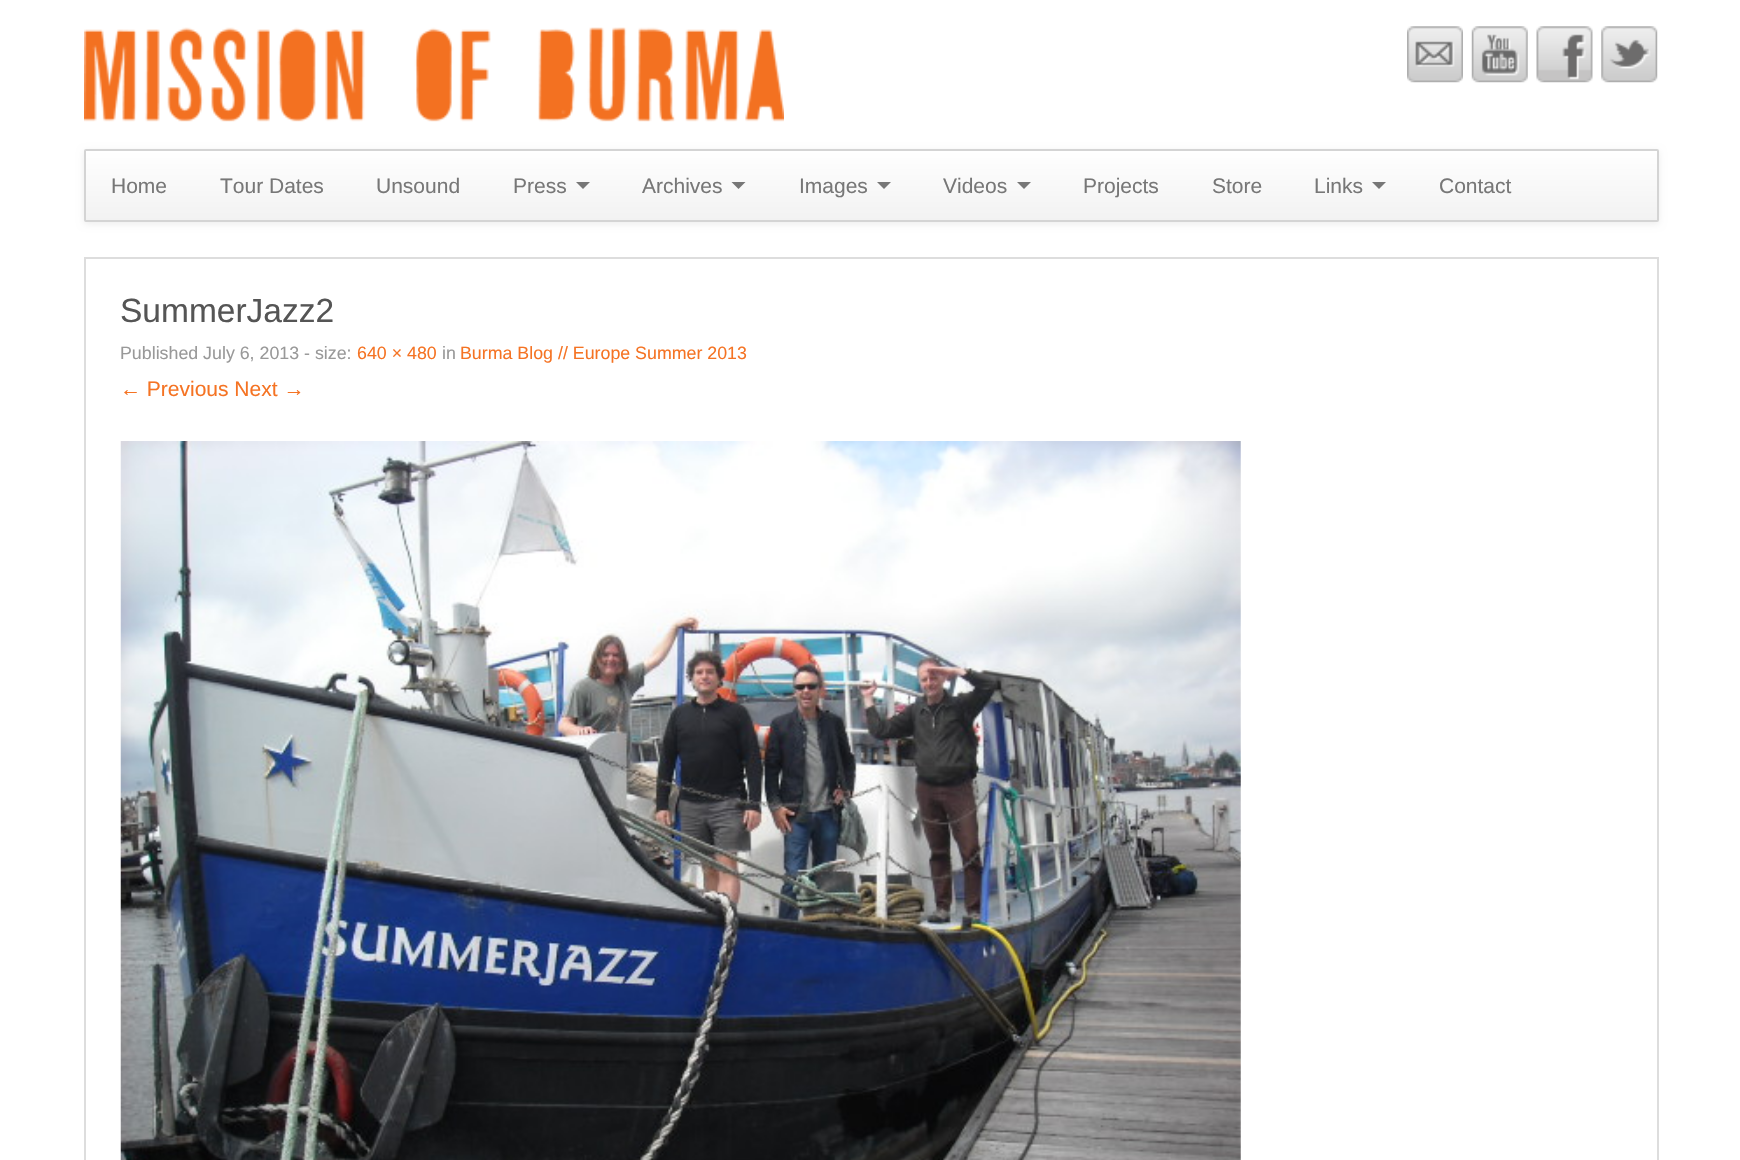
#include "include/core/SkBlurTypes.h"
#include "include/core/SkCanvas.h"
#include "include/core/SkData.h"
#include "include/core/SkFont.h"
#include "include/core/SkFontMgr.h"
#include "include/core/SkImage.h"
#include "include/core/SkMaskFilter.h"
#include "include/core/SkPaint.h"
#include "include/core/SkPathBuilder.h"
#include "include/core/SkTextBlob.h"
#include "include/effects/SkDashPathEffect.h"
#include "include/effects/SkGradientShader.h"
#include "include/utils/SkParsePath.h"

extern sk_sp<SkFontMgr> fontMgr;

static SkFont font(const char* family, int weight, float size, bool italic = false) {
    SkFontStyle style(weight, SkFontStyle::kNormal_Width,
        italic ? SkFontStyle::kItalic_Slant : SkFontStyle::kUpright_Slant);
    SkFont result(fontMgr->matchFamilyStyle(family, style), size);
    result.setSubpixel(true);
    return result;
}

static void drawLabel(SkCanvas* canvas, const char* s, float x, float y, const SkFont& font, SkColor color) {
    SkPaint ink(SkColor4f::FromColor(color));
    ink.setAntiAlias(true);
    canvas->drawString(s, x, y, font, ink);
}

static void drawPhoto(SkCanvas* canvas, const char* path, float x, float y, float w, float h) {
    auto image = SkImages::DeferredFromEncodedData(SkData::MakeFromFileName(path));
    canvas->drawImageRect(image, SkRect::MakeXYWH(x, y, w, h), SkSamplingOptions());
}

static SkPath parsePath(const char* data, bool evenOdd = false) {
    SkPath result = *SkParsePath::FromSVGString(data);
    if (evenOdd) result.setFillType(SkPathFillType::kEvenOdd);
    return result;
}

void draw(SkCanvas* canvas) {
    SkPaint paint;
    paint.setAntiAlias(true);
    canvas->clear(0xFFFFFFFF);
    drawPhoto(canvas, "assets/img1.png", 84, 27, 700, 95);
    drawPhoto(canvas, "assets/img2.png", 1407, 26, 56, 57);
    drawPhoto(canvas, "assets/img3.png", 1471, 26, 57, 57);
    drawPhoto(canvas, "assets/img4.png", 1536, 26, 57, 57);
    drawPhoto(canvas, "assets/img5.png", 1601, 26, 57, 57);
    paint.setColor(0x12000000);
    paint.setMaskFilter(SkMaskFilter::MakeBlur(kNormal_SkBlurStyle, 3.5f));
    canvas->drawRoundRect(SkRect::MakeXYWH(84, 151, 1575, 73), 2, 2, paint);
    paint.setMaskFilter(nullptr);
    {
        const SkColor colors[] = {0xFFFFFFFF, 0xFFF2F2F2};
        const float stops[] = {0, 1};
        const SkPoint ends[] = {{872, 150}, {872, 221}};
        paint.setShader(SkGradientShader::MakeLinear(ends, colors, stops, 2, SkTileMode::kClamp));
        paint.setAlpha(255);
    }
    canvas->drawRect(SkRect::MakeXYWH(84, 151, 1575, 70), paint);
    paint.setStroke(true);
    paint.setStrokeWidth(2);
    paint.setShader(nullptr);
    paint.setColor(0xFFD4D4D4);
    canvas->drawRoundRect(SkRect::MakeXYWH(85, 150, 1573, 71), 1, 1, paint);
    SkFont font1 = font("Liberation Sans", 400, 21);
    drawLabel(canvas, "Home", 111, 193, font1, 0xFF777777);
    drawLabel(canvas, "Tour Dates", 220, 193, font1, 0xFF777777);
    drawLabel(canvas, "Unsound", 376, 193, font1, 0xFF777777);
    drawLabel(canvas, "Press", 513, 193, font1, 0xFF777777);
    paint.setStroke(false);
    paint.setColor(0xFF777777);
    canvas->drawPath(parsePath("M576 182H590L583 189Z"), paint);
    drawLabel(canvas, "Archives", 642, 193, font1, 0xFF777777);
    canvas->drawPath(parsePath("M731.5 182H745.5L738.5 189Z"), paint);
    drawLabel(canvas, "Images", 799, 193, font1, 0xFF777777);
    canvas->drawPath(parsePath("M877 182H891L884 189Z"), paint);
    drawLabel(canvas, "Videos", 943, 193, font1, 0xFF777777);
    canvas->drawPath(parsePath("M1017 182H1031L1024 189Z"), paint);
    drawLabel(canvas, "Projects", 1083, 193, font1, 0xFF777777);
    drawLabel(canvas, "Store", 1212, 193, font1, 0xFF777777);
    drawLabel(canvas, "Links", 1314, 193, font1, 0xFF777777);
    canvas->drawPath(parsePath("M1372 182H1386L1379 189Z"), paint);
    drawLabel(canvas, "Contact", 1439, 193, font1, 0xFF777777);
    paint.setStroke(true);
    paint.setColor(0xFFDDDDDD);
    canvas->drawRect(SkRect::MakeXYWH(85, 258, 1573, 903), paint);
    SkFont font2 = font("Liberation Sans", 400, 33.5f);
    drawLabel(canvas, "SummerJazz2", 120, 322, font2, 0xFF555555);
    SkFont font3 = font("Liberation Sans", 400, 17.8f);
    drawLabel(canvas, "Published July 6, 2013 - size:", 120, 359, font3, 0xFF999999);
    drawLabel(canvas, "640 × 480", 357, 359, font3, 0xFFF57323);
    drawLabel(canvas, "in", 442, 359, font3, 0xFF999999);
    drawLabel(canvas, "Burma Blog // Europe Summer 2013", 460, 359, font3, 0xFFF57323);
    drawLabel(canvas, "← Previous Next →", 120, 396, font1, 0xFFF57323);
    drawPhoto(canvas, "assets/img6.png", 120, 441, 1121, 719);
}
